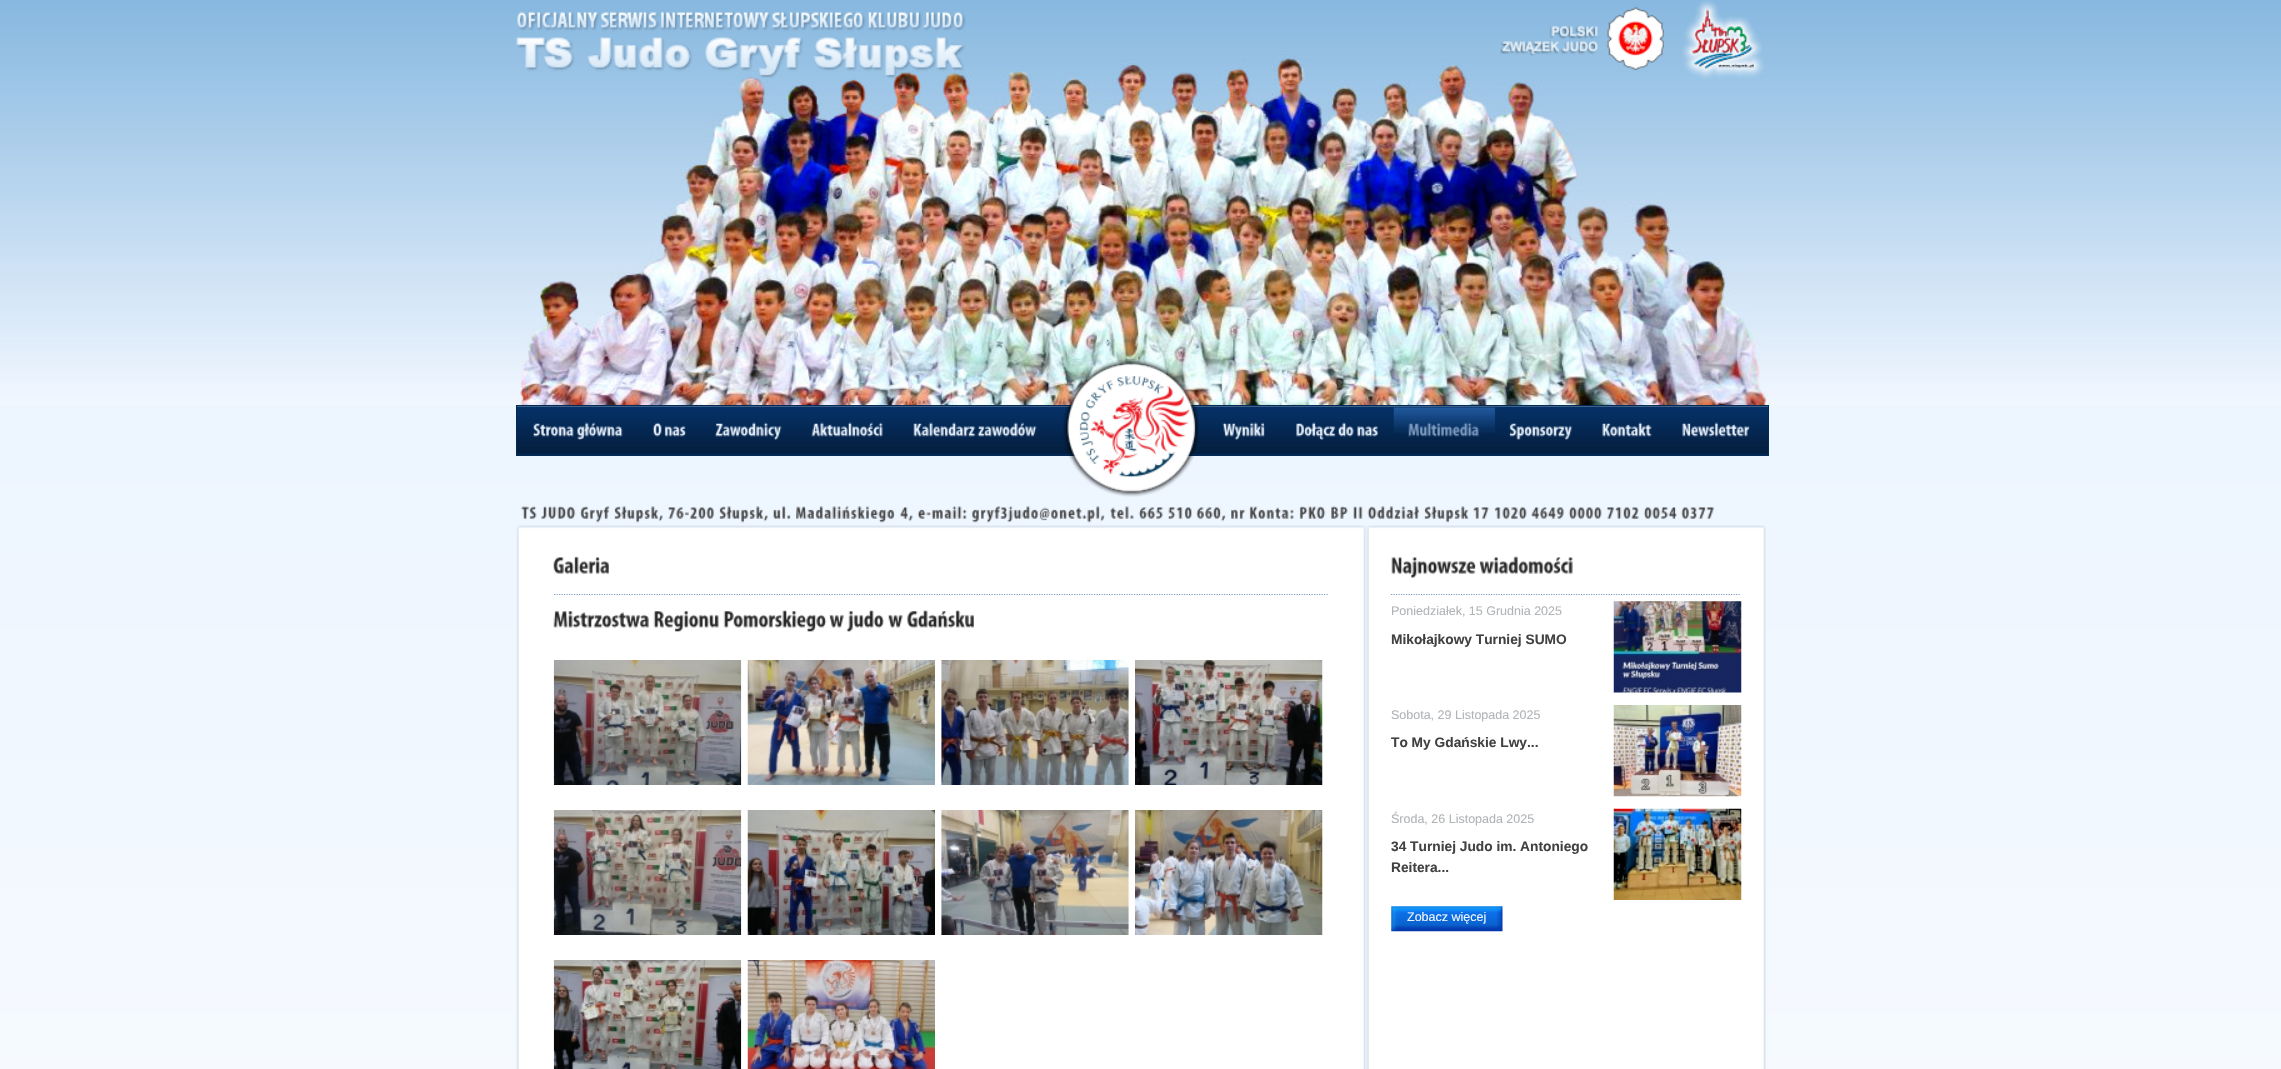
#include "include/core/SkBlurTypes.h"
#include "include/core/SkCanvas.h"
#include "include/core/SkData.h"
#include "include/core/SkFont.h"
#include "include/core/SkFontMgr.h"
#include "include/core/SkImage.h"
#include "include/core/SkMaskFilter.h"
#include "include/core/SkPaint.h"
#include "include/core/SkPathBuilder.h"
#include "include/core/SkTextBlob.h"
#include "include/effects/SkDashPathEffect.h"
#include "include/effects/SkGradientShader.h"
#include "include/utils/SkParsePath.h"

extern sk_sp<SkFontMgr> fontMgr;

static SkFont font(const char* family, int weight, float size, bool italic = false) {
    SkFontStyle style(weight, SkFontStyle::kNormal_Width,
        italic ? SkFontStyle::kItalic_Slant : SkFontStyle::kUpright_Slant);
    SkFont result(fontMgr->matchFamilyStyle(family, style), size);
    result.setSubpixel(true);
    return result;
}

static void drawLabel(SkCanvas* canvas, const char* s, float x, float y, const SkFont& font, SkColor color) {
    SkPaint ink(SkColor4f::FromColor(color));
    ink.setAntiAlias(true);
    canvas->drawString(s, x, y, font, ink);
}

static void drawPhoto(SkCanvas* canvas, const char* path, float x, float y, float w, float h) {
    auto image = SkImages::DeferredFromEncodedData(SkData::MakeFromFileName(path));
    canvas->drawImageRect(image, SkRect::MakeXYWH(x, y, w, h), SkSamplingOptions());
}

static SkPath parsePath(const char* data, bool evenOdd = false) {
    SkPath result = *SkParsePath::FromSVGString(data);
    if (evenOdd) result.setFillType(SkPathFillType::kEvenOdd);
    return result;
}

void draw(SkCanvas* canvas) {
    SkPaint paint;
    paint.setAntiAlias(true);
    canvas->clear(0xFFFFFFFF);
    drawPhoto(canvas, "assets/img1.png", 0, 405, 2281, 664);
    drawPhoto(canvas, "assets/img2.png", 0, 0, 2281, 405);
    drawPhoto(canvas, "assets/img3.png", 516, 12, 450, 66);
    drawPhoto(canvas, "assets/img4.png", 1500, 7, 164, 63);
    drawPhoto(canvas, "assets/img5.png", 1682, 0, 82, 79);
    drawPhoto(canvas, "assets/img6.png", 517, 406, 1251, 49);
    paint.setStroke(true);
    paint.setStrokeWidth(1);
    paint.setColor(0xFF052955);
    canvas->drawRect(SkRect::MakeXYWH(516.5f, 405.5f, 1252, 50), paint);
    drawPhoto(canvas, "assets/img7.png", 533, 423, 41, 14);
    drawPhoto(canvas, "assets/img8.png", 577, 422, 46, 18);
    drawPhoto(canvas, "assets/img9.png", 652, 422, 10, 15);
    drawPhoto(canvas, "assets/img10.png", 664, 426, 22, 11);
    drawPhoto(canvas, "assets/img11.png", 715, 422, 67, 18);
    drawPhoto(canvas, "assets/img12.png", 811, 422, 72, 15);
    drawPhoto(canvas, "assets/img13.png", 913, 422, 63, 15);
    drawPhoto(canvas, "assets/img14.png", 977, 422, 60, 15);
    drawPhoto(canvas, "assets/img15.png", 1063, 359, 136, 138);
    drawPhoto(canvas, "assets/img16.png", 1222, 422, 43, 18);
    drawPhoto(canvas, "assets/img17.png", 1296, 422, 40, 18);
    drawPhoto(canvas, "assets/img18.png", 1338, 422, 16, 15);
    drawPhoto(canvas, "assets/img19.png", 1357, 426, 21, 11);
    drawPhoto(canvas, "assets/img20.png", 1393, 407, 102, 26);
    drawPhoto(canvas, "assets/img21.png", 1408, 422, 71, 15);
    drawPhoto(canvas, "assets/img22.png", 1509, 423, 64, 17);
    drawPhoto(canvas, "assets/img23.png", 1602, 422, 50, 15);
    drawPhoto(canvas, "assets/img24.png", 1682, 422, 68, 15);
    drawPhoto(canvas, "assets/img25.png", 521, 506, 16, 13);
    drawPhoto(canvas, "assets/img26.png", 541, 506, 35, 13);
    drawPhoto(canvas, "assets/img27.png", 580, 506, 30, 17);
    drawPhoto(canvas, "assets/img28.png", 614, 506, 49, 17);
    drawPhoto(canvas, "assets/img29.png", 668, 507, 46, 12);
    drawPhoto(canvas, "assets/img28.png", 719, 506, 49, 17);
    drawPhoto(canvas, "assets/img30.png", 773, 506, 18, 13);
    drawPhoto(canvas, "assets/img31.png", 796, 506, 99, 17);
    drawPhoto(canvas, "assets/img32.png", 900, 507, 13, 15);
    drawPhoto(canvas, "assets/img33.png", 917, 506, 50, 13);
    drawPhoto(canvas, "assets/img34.png", 971, 506, 134, 17);
    drawPhoto(canvas, "assets/img35.png", 1110, 506, 24, 13);
    drawPhoto(canvas, "assets/img36.png", 1138, 507, 25, 12);
    drawPhoto(canvas, "assets/img37.png", 1168, 507, 24, 12);
    drawPhoto(canvas, "assets/img38.png", 1196, 507, 30, 15);
    drawPhoto(canvas, "assets/img39.png", 1231, 509, 15, 10);
    drawPhoto(canvas, "assets/img40.png", 1249, 506, 45, 13);
    drawPhoto(canvas, "assets/img41.png", 1299, 506, 27, 13);
    drawPhoto(canvas, "assets/img42.png", 1331, 506, 17, 13);
    drawPhoto(canvas, "assets/img43.png", 1353, 506, 10, 13);
    drawPhoto(canvas, "assets/img44.png", 1367, 506, 52, 13);
    drawPhoto(canvas, "assets/img45.png", 1424, 506, 45, 17);
    drawPhoto(canvas, "assets/img46.png", 1473, 507, 16, 12);
    drawPhoto(canvas, "assets/img47.png", 1494, 507, 33, 12);
    drawPhoto(canvas, "assets/img48.png", 1531, 507, 33, 12);
    drawPhoto(canvas, "assets/img49.png", 1568, 507, 34, 12);
    drawPhoto(canvas, "assets/img50.png", 1607, 507, 32, 12);
    drawPhoto(canvas, "assets/img51.png", 1643, 507, 34, 12);
    drawPhoto(canvas, "assets/img52.png", 1681, 507, 33, 12);
    drawPhoto(canvas, "assets/img53.png", 516, 525, 1250, 4);
    drawPhoto(canvas, "assets/img54.png", 516, 529, 1250, 540);
    paint.setStrokeWidth(1.2f);
    paint.setColor(0xFF809EC3);
    paint.setPathEffect(SkDashPathEffect::Make({{1.25f, 1.25f}}, 0));
    canvas->drawPath(parsePath("M554 594.5H1329"), paint);
    paint.setPathEffect(nullptr);
    drawPhoto(canvas, "assets/img55.png", 553, 556, 56, 18);
    drawPhoto(canvas, "assets/img56.png", 553, 611, 96, 17);
    drawPhoto(canvas, "assets/img57.png", 653, 611, 66, 21);
    drawPhoto(canvas, "assets/img58.png", 723, 610, 104, 22);
    drawPhoto(canvas, "assets/img59.png", 829, 614, 15, 14);
    drawPhoto(canvas, "assets/img60.png", 847, 610, 37, 22);
    drawPhoto(canvas, "assets/img61.png", 887, 614, 16, 14);
    drawPhoto(canvas, "assets/img62.png", 907, 610, 67, 18);
    drawPhoto(canvas, "assets/img63.png", 553, 660, 189, 125);
    drawPhoto(canvas, "assets/img64.png", 747, 660, 188, 125);
    drawPhoto(canvas, "assets/img65.png", 941, 660, 188, 125);
    drawPhoto(canvas, "assets/img66.png", 1135, 660, 188, 125);
    drawPhoto(canvas, "assets/img67.png", 553, 810, 189, 125);
    drawPhoto(canvas, "assets/img68.png", 747, 810, 188, 125);
    drawPhoto(canvas, "assets/img69.png", 941, 810, 188, 125);
    drawPhoto(canvas, "assets/img70.png", 1135, 810, 188, 125);
    drawPhoto(canvas, "assets/img71.png", 553, 960, 189, 109);
    drawPhoto(canvas, "assets/img72.png", 747, 960, 188, 109);
    paint.setPathEffect(SkDashPathEffect::Make({{1.25f, 1.25f}}, 0));
    canvas->drawPath(parsePath("M1391 594.5H1741"), paint);
    paint.setPathEffect(nullptr);
    drawPhoto(canvas, "assets/img73.png", 1391, 557, 85, 21);
    drawPhoto(canvas, "assets/img74.png", 1479, 556, 94, 18);
    SkFont font1 = font("Liberation Sans", 400, 12.5f);
    drawLabel(canvas, "Poniedziałek, 15 Grudnia 2025", 1391, 615, font1, 0xFFB1B4B7);
    drawPhoto(canvas, "assets/img75.png", 1613, 601, 129, 92);
    SkFont font2 = font("Liberation Sans", 700, 13.75f);
    drawLabel(canvas, "Mikołajkowy Turniej SUMO", 1391, 644, font2, 0xFF414141);
    drawLabel(canvas, "Sobota, 29 Listopada 2025", 1391, 719, font1, 0xFFB1B4B7);
    drawPhoto(canvas, "assets/img76.png", 1613, 705, 129, 92);
    drawLabel(canvas, "To My Gdańskie Lwy...", 1391, 747, font2, 0xFF414141);
    drawLabel(canvas, "Środa, 26 Listopada 2025", 1391, 823, font1, 0xFFB1B4B7);
    drawPhoto(canvas, "assets/img77.png", 1613, 808, 129, 92);
    drawLabel(canvas, "34 Turniej Judo im. Antoniego", 1391, 851, font2, 0xFF414141);
    drawLabel(canvas, "Reitera...", 1391, 872, font2, 0xFF414141);
    drawPhoto(canvas, "assets/img78.png", 1391, 906, 112, 26);
    drawLabel(canvas, "Zobacz więcej", 1407, 921, font1, 0xFFEDF5FF);
}
